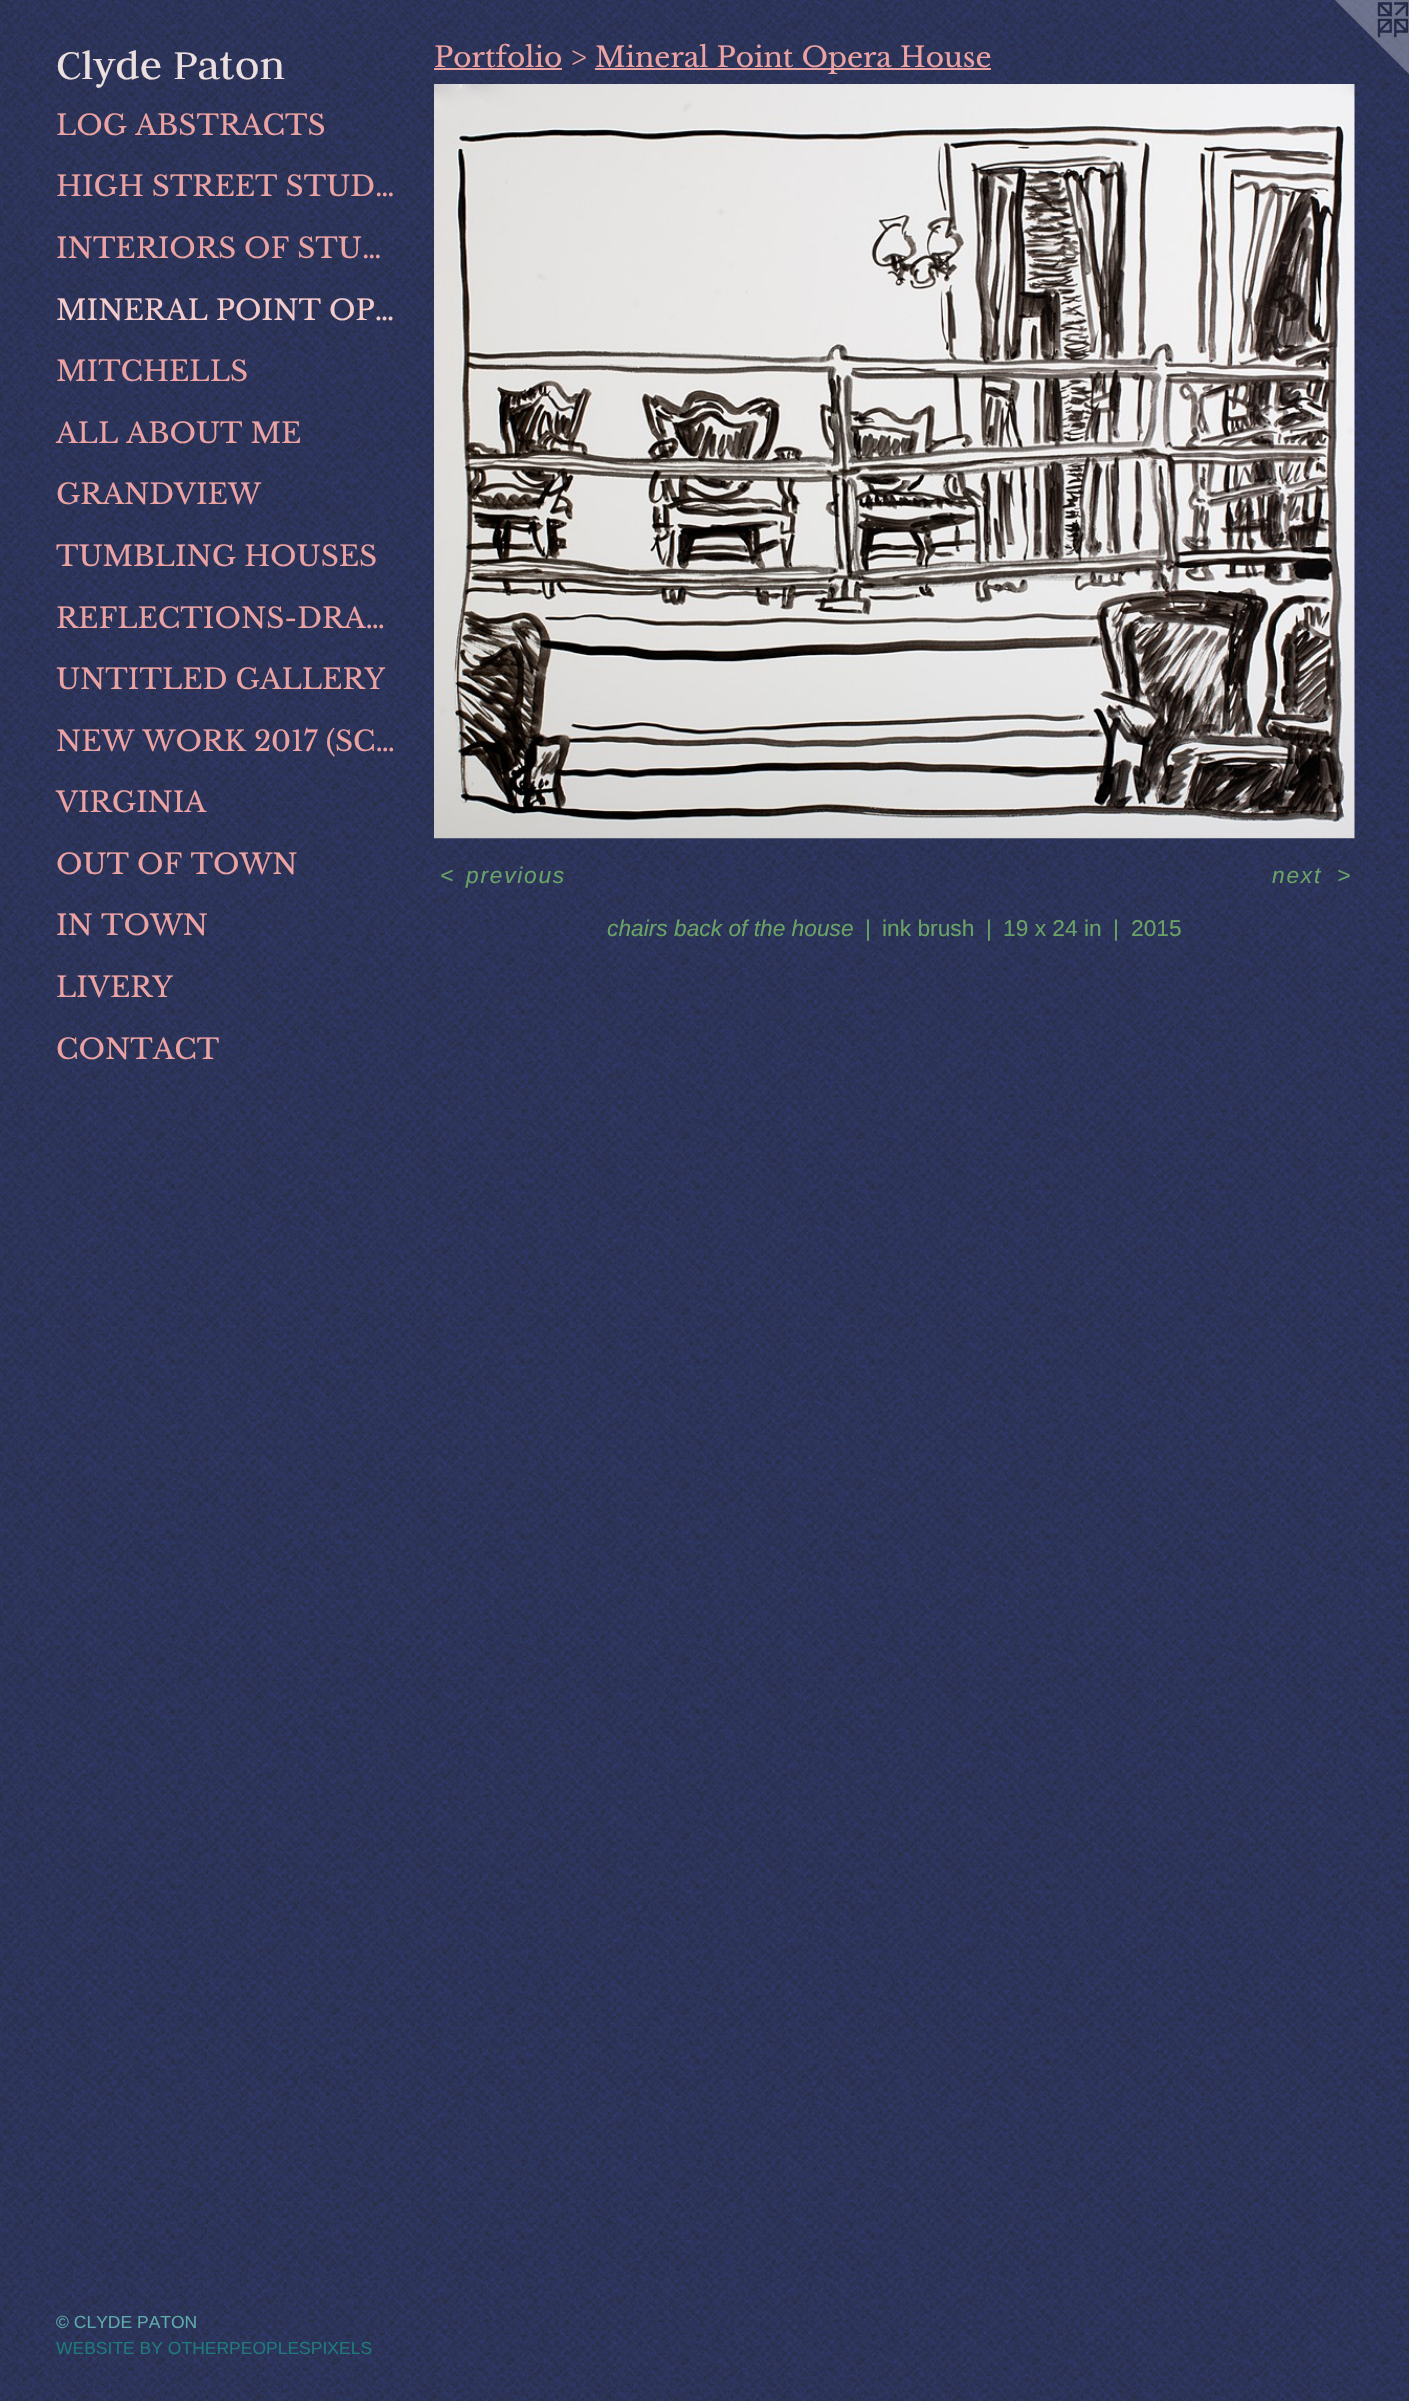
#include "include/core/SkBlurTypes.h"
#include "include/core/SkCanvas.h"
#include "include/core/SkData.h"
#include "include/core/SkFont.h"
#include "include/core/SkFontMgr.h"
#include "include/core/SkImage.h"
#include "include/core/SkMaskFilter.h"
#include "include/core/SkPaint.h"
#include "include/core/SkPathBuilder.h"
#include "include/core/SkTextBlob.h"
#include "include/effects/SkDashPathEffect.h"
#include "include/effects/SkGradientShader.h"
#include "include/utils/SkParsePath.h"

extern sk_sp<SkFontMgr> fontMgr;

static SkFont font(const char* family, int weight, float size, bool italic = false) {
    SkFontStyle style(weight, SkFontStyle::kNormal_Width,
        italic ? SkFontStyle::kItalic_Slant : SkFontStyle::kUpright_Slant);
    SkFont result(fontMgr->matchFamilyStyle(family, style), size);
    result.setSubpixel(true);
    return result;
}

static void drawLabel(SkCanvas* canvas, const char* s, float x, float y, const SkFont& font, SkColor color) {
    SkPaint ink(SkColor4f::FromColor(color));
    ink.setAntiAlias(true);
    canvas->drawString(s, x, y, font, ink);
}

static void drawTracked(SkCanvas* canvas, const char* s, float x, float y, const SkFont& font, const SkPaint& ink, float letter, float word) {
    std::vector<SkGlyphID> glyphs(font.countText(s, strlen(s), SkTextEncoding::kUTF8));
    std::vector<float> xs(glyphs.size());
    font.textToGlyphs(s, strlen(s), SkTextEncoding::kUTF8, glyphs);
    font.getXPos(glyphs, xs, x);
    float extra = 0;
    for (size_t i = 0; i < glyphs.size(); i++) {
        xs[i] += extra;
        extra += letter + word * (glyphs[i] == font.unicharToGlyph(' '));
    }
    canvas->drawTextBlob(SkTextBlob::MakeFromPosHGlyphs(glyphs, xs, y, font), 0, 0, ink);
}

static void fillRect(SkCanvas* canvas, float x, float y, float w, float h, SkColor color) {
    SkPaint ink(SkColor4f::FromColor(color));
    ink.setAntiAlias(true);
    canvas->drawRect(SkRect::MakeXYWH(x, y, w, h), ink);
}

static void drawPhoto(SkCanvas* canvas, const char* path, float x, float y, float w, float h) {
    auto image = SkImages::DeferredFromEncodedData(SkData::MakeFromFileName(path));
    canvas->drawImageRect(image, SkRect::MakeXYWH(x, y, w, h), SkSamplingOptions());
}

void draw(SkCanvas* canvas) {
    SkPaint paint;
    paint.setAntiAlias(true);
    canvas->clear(0xFFFFFFFF);
    drawPhoto(canvas, "assets/img1.png", 0, 0, 1409, 2401);
    SkFont font1 = font("Judson", 400, 45.5f);
    drawLabel(canvas, "Clyde Paton", 56, 79, font1, 0xFFECDFDF);
    SkFont font2 = font("Libre Baskerville", 400, 28);
    drawLabel(canvas, "LOG ABSTRACTS", 56, 135, font2, 0xFFEBA2A2);
    drawLabel(canvas, "HIGH STREET STUD…", 56, 196, font2, 0xFFEBA2A2);
    drawLabel(canvas, "INTERIORS OF STU…", 56, 258, font2, 0xFFEBA2A2);
    drawLabel(canvas, "MINERAL POINT OP…", 56, 320, font2, 0xFFF4CCCC);
    drawLabel(canvas, "MITCHELLS", 56, 381, font2, 0xFFEBA2A2);
    drawLabel(canvas, "ALL ABOUT ME", 56, 443, font2, 0xFFEBA2A2);
    drawLabel(canvas, "GRANDVIEW", 56, 504, font2, 0xFFEBA2A2);
    drawLabel(canvas, "TUMBLING HOUSES", 56, 566, font2, 0xFFEBA2A2);
    drawLabel(canvas, "REFLECTIONS-DRA…", 56, 628, font2, 0xFFEBA2A2);
    drawLabel(canvas, "UNTITLED GALLERY", 56, 689, font2, 0xFFEBA2A2);
    drawLabel(canvas, "NEW WORK 2017 (SC…", 56, 751, font2, 0xFFEBA2A2);
    drawLabel(canvas, "VIRGINIA", 56, 812, font2, 0xFFEBA2A2);
    drawLabel(canvas, "OUT OF TOWN", 56, 874, font2, 0xFFEBA2A2);
    drawLabel(canvas, "IN TOWN", 56, 935, font2, 0xFFEBA2A2);
    drawLabel(canvas, "LIVERY", 56, 997, font2, 0xFFEBA2A2);
    drawLabel(canvas, "CONTACT", 56, 1059, font2, 0xFFEBA2A2);
    SkFont font3 = font("Liberation Sans", 400, 17.5f);
    drawLabel(canvas, "© CLYDE PATON", 56, 2328, font3, 0xFF5DABAC);
    drawLabel(canvas, "WEBSITE BY OTHERPEOPLESPIXELS", 56, 2354, font3, 0xFF1E7A7B);
    drawLabel(canvas, "Portfolio >", 434, 67, font2, 0xFFEBA2A2);
    fillRect(canvas, 434, 68, 128, 2, 0xFFEBA2A2);
    fillRect(canvas, 595, 68, 396, 2, 0xFFEBA2A2);
    drawLabel(canvas, "Mineral Point Opera House", 595, 67, font2, 0xFFEBA2A2);
    drawPhoto(canvas, "assets/img2.png", 434, 84, 921, 755);
    SkFont font4 = font("Liberation Sans", 400, 22.75f, true);
    paint.setColor(0xFF69A366);
    drawTracked(canvas, "<", 440, 883, font4, paint, 1.75f, 0);
    drawTracked(canvas, "previous", 466, 883, font4, paint, 1.75f, 0);
    drawTracked(canvas, "next", 1272, 883, font4, paint, 1.75f, 0);
    drawTracked(canvas, ">", 1337, 883, font4, paint, 1.75f, 0);
    drawLabel(canvas, "chairs back of the house", 607, 936, font4, 0xFF69A366);
    SkFont font5 = font("Liberation Sans", 400, 22.75f);
    drawLabel(canvas, "|", 865, 936, font5, 0xFF69A366);
    drawLabel(canvas, "ink brush", 882, 936, font5, 0xFF69A366);
    drawLabel(canvas, "|", 986, 936, font5, 0xFF69A366);
    drawLabel(canvas, "19 x 24 in", 1003, 936, font5, 0xFF69A366);
    drawLabel(canvas, "|", 1113, 936, font5, 0xFF69A366);
    drawLabel(canvas, "2015", 1131, 936, font5, 0xFF69A366);
    drawPhoto(canvas, "assets/img3.png", 1335, 0, 74, 74);
}
